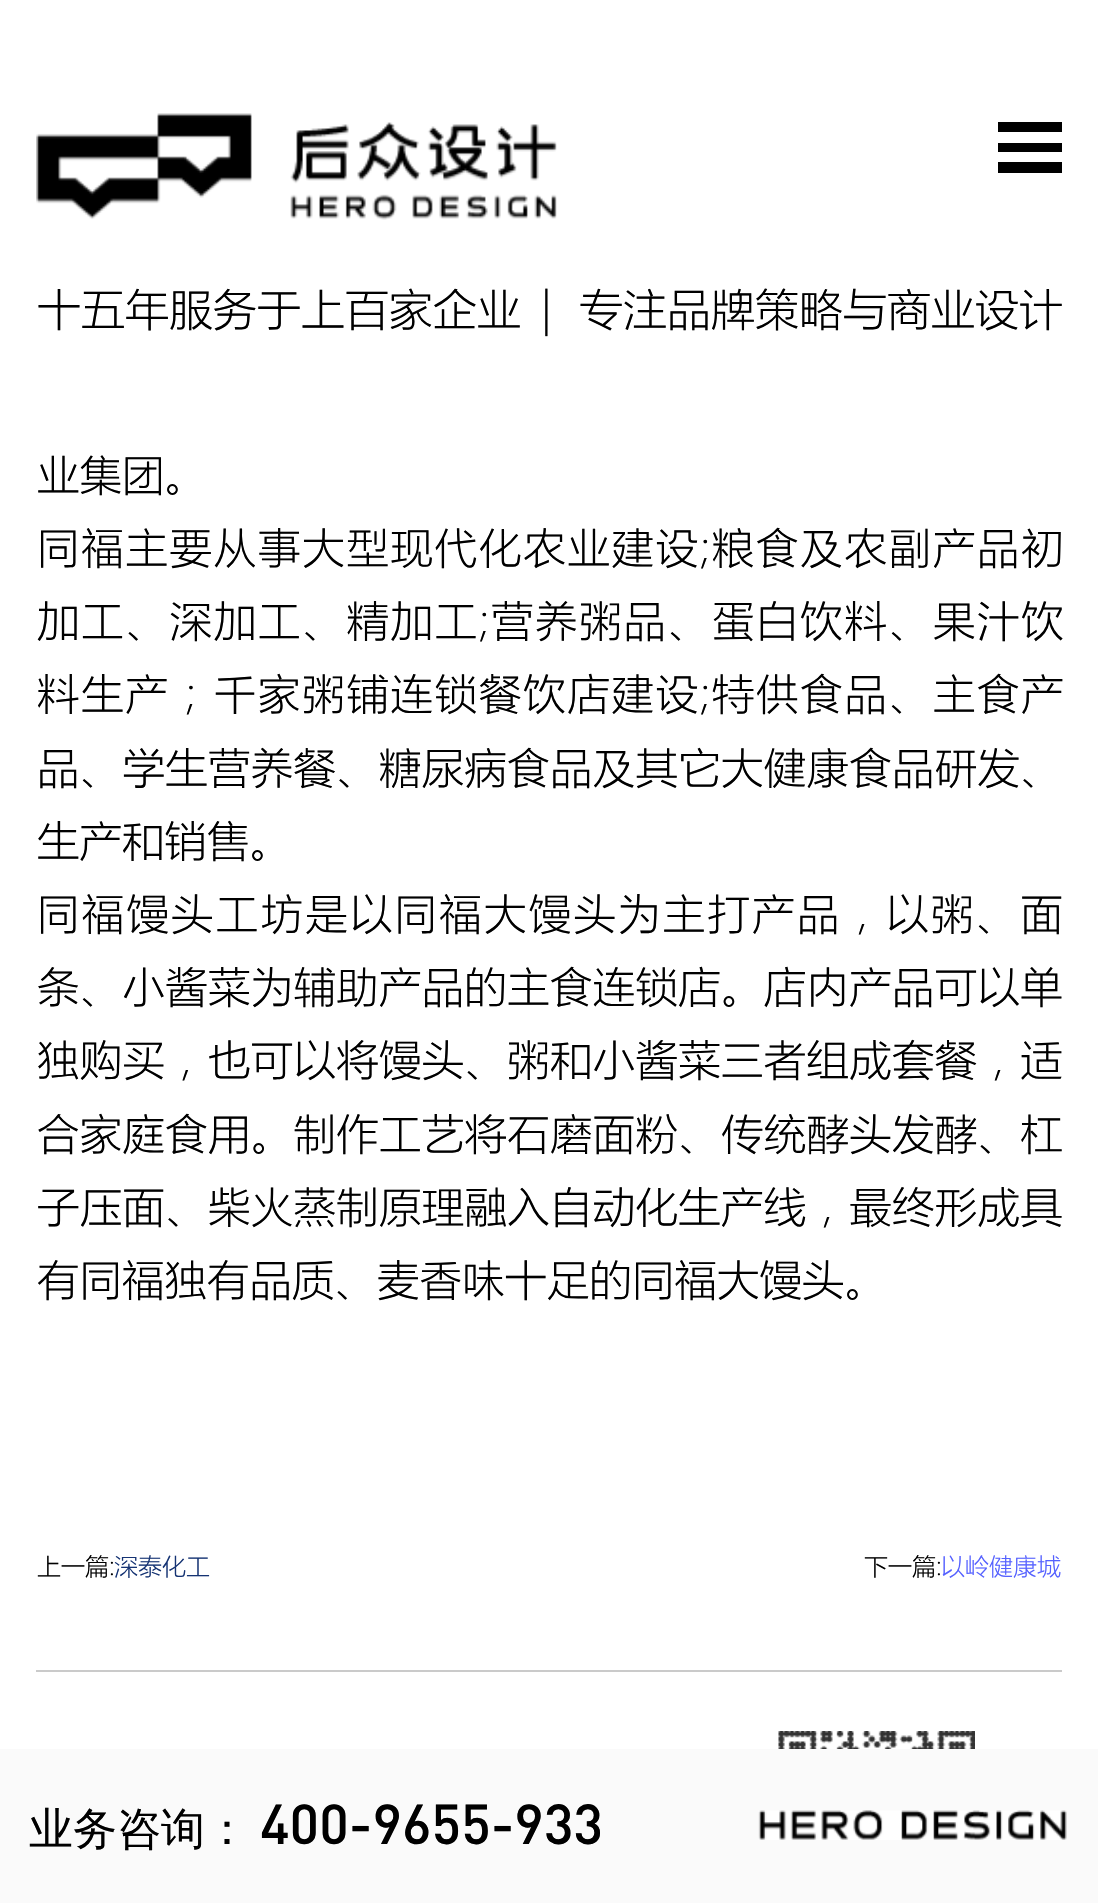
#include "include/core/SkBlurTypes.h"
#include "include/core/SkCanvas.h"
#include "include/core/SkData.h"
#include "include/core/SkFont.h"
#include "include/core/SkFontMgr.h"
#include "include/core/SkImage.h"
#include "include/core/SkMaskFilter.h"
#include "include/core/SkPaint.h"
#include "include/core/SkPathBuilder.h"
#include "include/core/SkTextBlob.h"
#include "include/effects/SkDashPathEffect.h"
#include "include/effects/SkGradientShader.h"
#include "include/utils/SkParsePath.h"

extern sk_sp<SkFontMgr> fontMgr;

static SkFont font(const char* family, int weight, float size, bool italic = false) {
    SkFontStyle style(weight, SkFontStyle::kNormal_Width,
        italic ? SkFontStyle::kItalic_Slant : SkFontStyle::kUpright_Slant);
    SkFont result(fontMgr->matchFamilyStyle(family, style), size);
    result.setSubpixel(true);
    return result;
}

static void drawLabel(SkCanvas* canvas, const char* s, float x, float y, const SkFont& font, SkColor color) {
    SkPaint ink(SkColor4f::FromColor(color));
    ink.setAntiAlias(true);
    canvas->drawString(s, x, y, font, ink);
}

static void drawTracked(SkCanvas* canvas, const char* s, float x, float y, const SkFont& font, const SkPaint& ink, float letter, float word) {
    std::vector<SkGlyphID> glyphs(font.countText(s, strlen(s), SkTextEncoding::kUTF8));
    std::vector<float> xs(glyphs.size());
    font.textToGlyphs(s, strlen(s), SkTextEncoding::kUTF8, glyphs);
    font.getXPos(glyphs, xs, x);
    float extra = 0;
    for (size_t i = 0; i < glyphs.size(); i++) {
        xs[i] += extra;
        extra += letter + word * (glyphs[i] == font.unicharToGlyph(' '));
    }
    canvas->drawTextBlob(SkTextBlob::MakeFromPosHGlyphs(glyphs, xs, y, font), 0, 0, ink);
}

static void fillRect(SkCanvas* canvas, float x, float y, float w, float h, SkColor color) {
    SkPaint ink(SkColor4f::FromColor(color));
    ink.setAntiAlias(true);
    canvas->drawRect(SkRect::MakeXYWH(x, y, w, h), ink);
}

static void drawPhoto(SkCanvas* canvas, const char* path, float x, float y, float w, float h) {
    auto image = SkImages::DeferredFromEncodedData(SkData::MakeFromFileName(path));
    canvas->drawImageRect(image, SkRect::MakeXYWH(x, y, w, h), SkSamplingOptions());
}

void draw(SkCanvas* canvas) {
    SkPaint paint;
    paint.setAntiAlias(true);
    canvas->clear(0xFFFFFFFF);
    fillRect(canvas, 998, 122, 64, 10, 0xFF000000);
    fillRect(canvas, 998, 143, 64, 9, 0xFF000000);
    fillRect(canvas, 998, 162, 64, 11, 0xFF000000);
    drawPhoto(canvas, "assets/img1.png", 36, 113, 521, 107);
    SkFont font1 = font("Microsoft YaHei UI", 300, 44);
    drawLabel(canvas, "十五年服务于上百家企业", 37, 325, font1, 0xFF000000);
    drawLabel(canvas, "|", 541, 325, font1, 0xFF000000);
    drawLabel(canvas, "专注品牌策略与商业设计", 579, 325, font1, 0xFF000000);
    SkFont font2 = font("Microsoft YaHei UI", 300, 42.5f);
    drawLabel(canvas, "业集团。", 37, 490, font2, 0xFF000000);
    paint.setColor(0xFF000000);
    drawTracked(canvas, "同福主要从事大型现代化农业建设;粮食及农副产品初", 37, 563, font2, paint, 1.7f, 0);
    drawTracked(canvas, "加工、深加工、精加工;营养粥品、蛋白饮料、果汁饮", 37, 636, font2, paint, 1.7f, 0);
    drawTracked(canvas, "料生产；千家粥铺连锁餐饮店建设;特供食品、主食产", 37, 709, font2, paint, 1.7f, 0);
    drawTracked(canvas, "品、学生营养餐、糖尿病食品及其它大健康食品研发、", 37, 783, font2, paint, 0.25f, 0);
    drawLabel(canvas, "生产和销售。", 37, 856, font2, 0xFF000000);
    drawTracked(canvas, "同福馒头工坊是以同福大馒头为主打产品，以粥、面", 37, 929, font2, paint, 2.2f, 0);
    drawTracked(canvas, "条、小酱菜为辅助产品的主食连锁店。店内产品可以单", 37, 1002, font2, paint, 0.25f, 0);
    drawTracked(canvas, "独购买，也可以将馒头、粥和小酱菜三者组成套餐，适", 37, 1075, font2, paint, 0.25f, 0);
    drawTracked(canvas, "合家庭食用。制作工艺将石磨面粉、传统酵头发酵、杠", 37, 1149, font2, paint, 0.25f, 0);
    drawTracked(canvas, "子压面、柴火蒸制原理融入自动化生产线，最终形成具", 37, 1222, font2, paint, 0.25f, 0);
    drawLabel(canvas, "有同福独有品质、麦香味十足的同福大馒头。", 37, 1295, font2, 0xFF000000);
    SkFont font3 = font("Microsoft YaHei UI", 300, 24);
    drawLabel(canvas, "上一篇:", 37, 1575, font3, 0xFF000000);
    drawLabel(canvas, "深泰化工", 114, 1575, font3, 0xFF153373);
    drawLabel(canvas, "下一篇:", 864, 1575, font3, 0xFF000000);
    drawLabel(canvas, "以岭健康城", 941, 1575, font3, 0xFF5561FF);
    fillRect(canvas, 36, 1670, 1026, 2, 0xFFCACACA);
    drawPhoto(canvas, "assets/img2.png", 778, 1731, 197, 18);
    fillRect(canvas, 0, 1749, 1098, 154, 0xFFFAFAFA);
    SkFont font4 = font("WenQuanYi Zen Hei", 500, 44);
    drawLabel(canvas, "业务咨询：", 29, 1844, font4, 0xFF000000);
    SkFont font5 = font("DIN", 500, 55.5f);
    drawLabel(canvas, "400-9655-933", 260, 1844, font5, 0xFF000000);
    drawPhoto(canvas, "assets/img3.png", 758, 1810, 309, 30);
}
